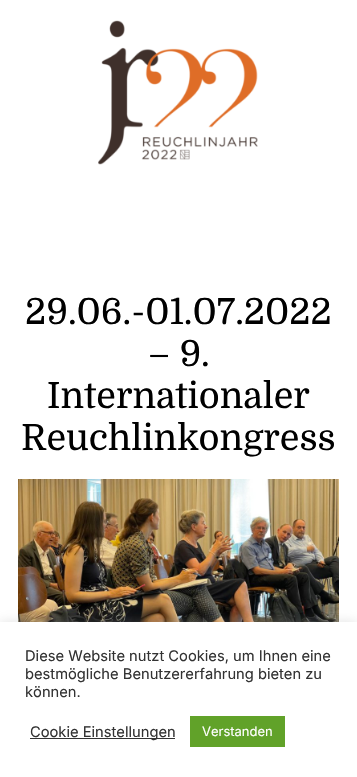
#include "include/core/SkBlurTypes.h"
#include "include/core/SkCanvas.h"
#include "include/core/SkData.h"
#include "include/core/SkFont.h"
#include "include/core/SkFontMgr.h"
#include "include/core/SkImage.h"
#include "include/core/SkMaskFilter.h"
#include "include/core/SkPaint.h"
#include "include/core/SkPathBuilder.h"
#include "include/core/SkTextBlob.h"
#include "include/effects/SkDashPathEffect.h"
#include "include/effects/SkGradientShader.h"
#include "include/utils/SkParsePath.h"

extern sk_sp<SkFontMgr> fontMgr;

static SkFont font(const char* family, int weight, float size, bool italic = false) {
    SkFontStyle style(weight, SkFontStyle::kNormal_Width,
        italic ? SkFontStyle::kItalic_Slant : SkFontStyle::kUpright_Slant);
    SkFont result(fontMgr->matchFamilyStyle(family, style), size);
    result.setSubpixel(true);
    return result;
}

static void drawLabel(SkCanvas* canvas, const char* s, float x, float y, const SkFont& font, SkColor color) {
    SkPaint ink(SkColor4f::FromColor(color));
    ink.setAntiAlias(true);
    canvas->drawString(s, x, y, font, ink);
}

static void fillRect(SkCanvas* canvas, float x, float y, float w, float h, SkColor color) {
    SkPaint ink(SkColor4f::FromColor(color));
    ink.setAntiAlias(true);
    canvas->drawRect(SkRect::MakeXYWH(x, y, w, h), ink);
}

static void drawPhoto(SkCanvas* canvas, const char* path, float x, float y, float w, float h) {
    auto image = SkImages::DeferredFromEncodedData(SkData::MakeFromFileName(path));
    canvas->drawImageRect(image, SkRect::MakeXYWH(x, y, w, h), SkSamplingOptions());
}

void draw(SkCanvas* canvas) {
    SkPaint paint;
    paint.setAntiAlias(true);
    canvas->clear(0xFFFFFFFF);
    drawPhoto(canvas, "assets/img1.png", 98, 20, 160, 145);
    SkFont font1 = font("Domine", 400, 36);
    drawLabel(canvas, "29.06.-01.07.2022", 25, 324, font1, 0xFF000000);
    drawLabel(canvas, "– 9.", 148, 366, font1, 0xFF000000);
    drawLabel(canvas, "Internationaler", 47, 408, font1, 0xFF000000);
    drawLabel(canvas, "Reuchlinkongress", 21, 450, font1, 0xFF000000);
    drawPhoto(canvas, "assets/img2.png", 18, 479, 321, 143);
    paint.setColor(0x4DACABAB);
    paint.setMaskFilter(SkMaskFilter::MakeBlur(kNormal_SkBlurStyle, 5));
    canvas->drawRect(SkRect::MakeXYWH(0, 621, 357, 155), paint);
    paint.setMaskFilter(nullptr);
    fillRect(canvas, 0, 622, 357, 155, 0xFFFFFFFF);
    SkFont font2 = font("Inter", 400, 14.7f);
    drawLabel(canvas, "Diese Website nutzt Cookies, um Ihnen eine", 25, 661, font2, 0xFF333333);
    drawLabel(canvas, "bestmögliche Benutzererfahrung bieten zu", 25, 679, font2, 0xFF333333);
    drawLabel(canvas, "können.", 25, 697, font2, 0xFF333333);
    fillRect(canvas, 30, 738, 145, 1, 0xFF333333);
    drawLabel(canvas, "Cookie Einstellungen", 30, 737, font2, 0xFF333333);
    fillRect(canvas, 190, 716, 95, 31, 0xFF61A229);
    SkFont font3 = font("Inter", 400, 13);
    drawLabel(canvas, "Verstanden", 202, 736, font3, 0xFFFFFFFF);
}
